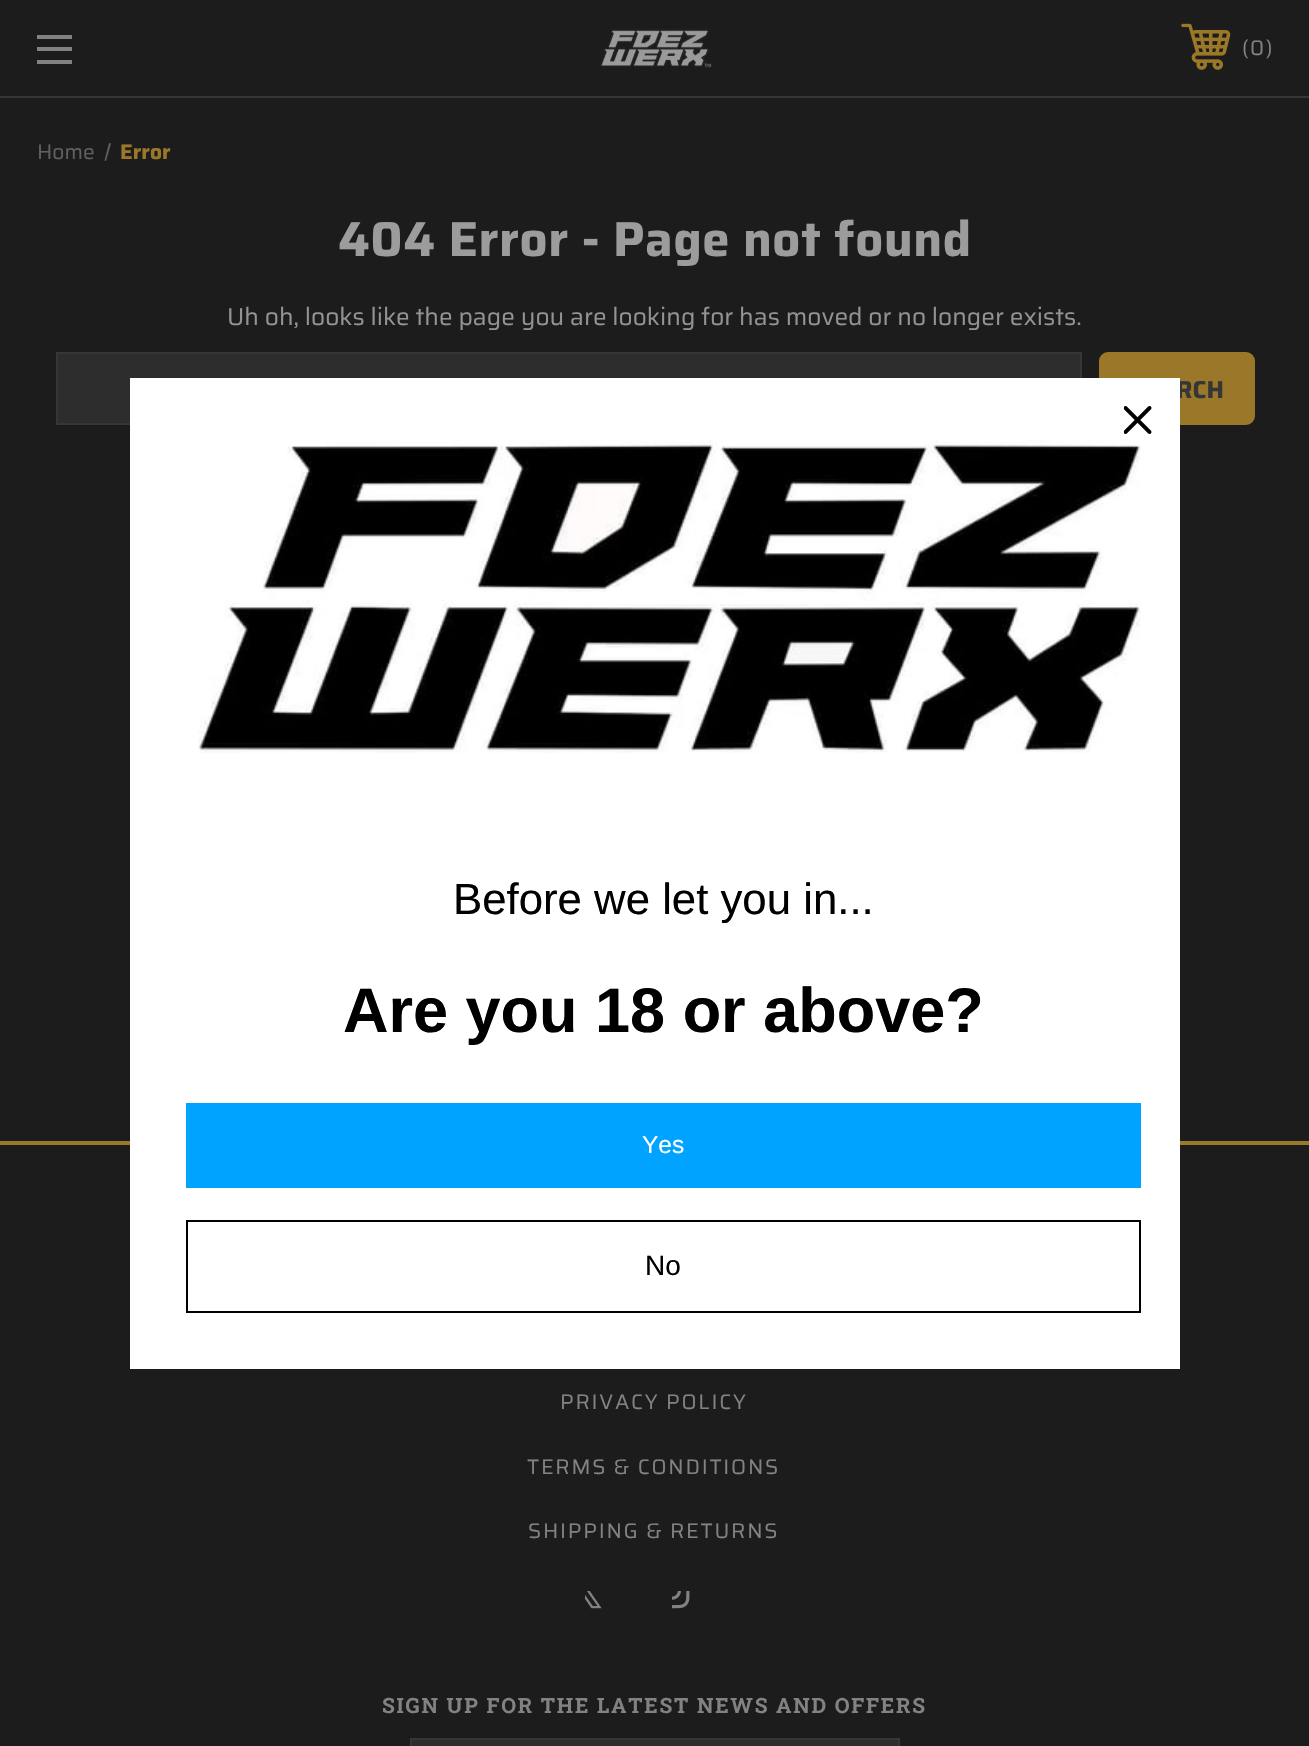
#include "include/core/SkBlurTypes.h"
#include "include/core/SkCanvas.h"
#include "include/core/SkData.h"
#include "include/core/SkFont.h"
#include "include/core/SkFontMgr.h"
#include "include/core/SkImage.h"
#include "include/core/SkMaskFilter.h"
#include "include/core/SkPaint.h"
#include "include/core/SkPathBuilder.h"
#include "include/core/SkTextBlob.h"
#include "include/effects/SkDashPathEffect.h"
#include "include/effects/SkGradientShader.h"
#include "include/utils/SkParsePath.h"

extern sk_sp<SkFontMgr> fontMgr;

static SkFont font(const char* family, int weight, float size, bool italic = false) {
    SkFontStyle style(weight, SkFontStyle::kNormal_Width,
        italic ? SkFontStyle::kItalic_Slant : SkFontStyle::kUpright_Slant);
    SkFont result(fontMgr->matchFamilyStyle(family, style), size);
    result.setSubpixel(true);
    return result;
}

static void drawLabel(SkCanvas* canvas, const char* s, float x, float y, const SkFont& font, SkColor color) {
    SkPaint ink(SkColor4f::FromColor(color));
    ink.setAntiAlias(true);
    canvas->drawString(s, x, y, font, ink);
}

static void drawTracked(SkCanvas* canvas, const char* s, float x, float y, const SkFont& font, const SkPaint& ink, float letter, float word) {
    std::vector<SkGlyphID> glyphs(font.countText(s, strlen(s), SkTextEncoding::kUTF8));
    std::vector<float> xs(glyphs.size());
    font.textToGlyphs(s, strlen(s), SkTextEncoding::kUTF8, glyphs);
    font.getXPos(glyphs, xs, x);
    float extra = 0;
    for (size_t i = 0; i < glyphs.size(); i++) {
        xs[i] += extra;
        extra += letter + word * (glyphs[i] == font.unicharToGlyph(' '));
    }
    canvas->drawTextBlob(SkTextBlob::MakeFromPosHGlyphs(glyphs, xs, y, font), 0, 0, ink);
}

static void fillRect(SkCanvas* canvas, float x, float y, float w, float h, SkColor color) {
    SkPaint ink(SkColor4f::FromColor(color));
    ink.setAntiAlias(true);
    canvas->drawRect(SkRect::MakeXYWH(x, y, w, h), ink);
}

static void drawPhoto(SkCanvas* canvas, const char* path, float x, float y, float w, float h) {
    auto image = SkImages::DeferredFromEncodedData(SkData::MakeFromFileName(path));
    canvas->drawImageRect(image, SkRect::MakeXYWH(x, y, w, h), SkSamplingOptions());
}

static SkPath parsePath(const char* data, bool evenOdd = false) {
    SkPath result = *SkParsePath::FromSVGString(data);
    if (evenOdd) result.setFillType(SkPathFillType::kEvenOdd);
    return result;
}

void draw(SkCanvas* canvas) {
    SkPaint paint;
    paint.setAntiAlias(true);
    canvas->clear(0xFF1C1C1C);
    fillRect(canvas, 0, 96, 1309, 2, 0xFF363636);
    fillRect(canvas, 37, 47, 35, 4, 0xFF828282);
    fillRect(canvas, 37, 35, 35, 4, 0xFF828282);
    fillRect(canvas, 37, 60, 35, 4, 0xFF828282);
    drawPhoto(canvas, "assets/img1.png", 600, 29, 112, 39);
    drawPhoto(canvas, "assets/img2.png", 1181, 23, 50, 47);
    SkFont font1 = font("Saira", 400, 21);
    drawLabel(canvas, "(", 1242, 55, font1, 0xFF828282);
    drawLabel(canvas, "0", 1250, 55, font1, 0xFF828282);
    drawLabel(canvas, ")", 1266, 55, font1, 0xFF828282);
    drawLabel(canvas, "Home", 37, 159, font1, 0xFF606060);
    paint.setColor(0xFF606060);
    canvas->drawPath(parsePath("M109 143L111 143.5L106 161L104.5 160.5Z"), paint);
    SkFont font2 = font("Saira", 700, 21);
    drawLabel(canvas, "Error", 120, 159, font2, 0xFF9B7829);
    SkFont font3 = font("Saira", 700, 49);
    paint.setColor(0xFF9C9C9C);
    drawTracked(canvas, "404 Error - Page not found", 338, 256, font3, paint, 0.45f, 0);
    SkFont font4 = font("Saira", 400, 24.5f);
    drawLabel(canvas, "Uh oh, looks like the page you are looking for has moved or no longer exists.", 227, 325, font4, 0xFF939393);
    paint.setColor(0xFF2D2D2D);
    canvas->drawRect(SkRect::MakeXYWH(57, 353, 1024, 71), paint);
    paint.setStroke(true);
    paint.setStrokeWidth(2);
    paint.setColor(0xFF363636);
    canvas->drawRect(SkRect::MakeXYWH(57, 353, 1024, 71), paint);
    paint.setStroke(false);
    paint.setColor(0xFF9B7829);
    canvas->drawRoundRect(SkRect::MakeXYWH(1100, 353, 154, 71), 8, 8, paint);
    paint.setStroke(true);
    canvas->drawRoundRect(SkRect::MakeXYWH(1100, 353, 154, 71), 8, 8, paint);
    SkFont font5 = font("Saira", 700, 24.5f);
    drawLabel(canvas, "RCH", 1176, 398, font5, 0xFF363636);
    fillRect(canvas, 0, 1141, 1309, 4, 0xFF9B7829);
    fillRect(canvas, 130, 378, 1050, 991, 0xFFFFFFFF);
    drawPhoto(canvas, "assets/img3.png", 1124, 406, 28, 28);
    drawPhoto(canvas, "assets/img4.png", 198, 440, 943, 313);
    SkFont font6 = font("Liberation Sans", 400, 43.75f);
    drawLabel(canvas, "Before we let you in...", 453, 914, font6, 0xFF000000);
    SkFont font7 = font("Liberation Sans", 700, 63);
    drawLabel(canvas, "Are you 18 or above?", 343, 1032, font7, 0xFF000000);
    fillRect(canvas, 186, 1103, 955, 85, 0xFF00A3FF);
    SkFont font8 = font("Liberation Sans", 400, 24.5f);
    drawLabel(canvas, "Yes", 642, 1153, font8, 0xFFFFFFFF);
    paint.setColor(0xFF000000);
    canvas->drawRect(SkRect::MakeXYWH(187, 1221, 953, 91), paint);
    SkFont font9 = font("Liberation Sans", 400, 28);
    drawLabel(canvas, "No", 645, 1275, font9, 0xFF000000);
    paint.setStroke(false);
    paint.setColor(0xFF828282);
    drawTracked(canvas, "PRIVACY POLICY", 560, 1409, font1, paint, 1.75f, 0);
    drawTracked(canvas, "TERMS & CONDITIONS", 527, 1474, font1, paint, 1.75f, 0);
    drawTracked(canvas, "SHIPPING & RETURNS", 528, 1538, font1, paint, 1.75f, 0);
    drawPhoto(canvas, "assets/img5.png", 585, 1591, 17, 18);
    drawPhoto(canvas, "assets/img6.png", 672, 1591, 18, 18);
    SkFont font10 = font("Roboto Slab", 700, 21);
    drawTracked(canvas, "SIGN UP FOR THE LATEST NEWS AND OFFERS", 382, 1713, font10, paint, 1.75f, 0);
    paint.setColor(0xFF2D2D2D);
    canvas->drawRect(SkRect::MakeXYWH(411, 1739, 488, 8), paint);
    paint.setStroke(true);
    paint.setColor(0xFF363636);
    canvas->drawRect(SkRect::MakeXYWH(411, 1739, 488, 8), paint);
}
